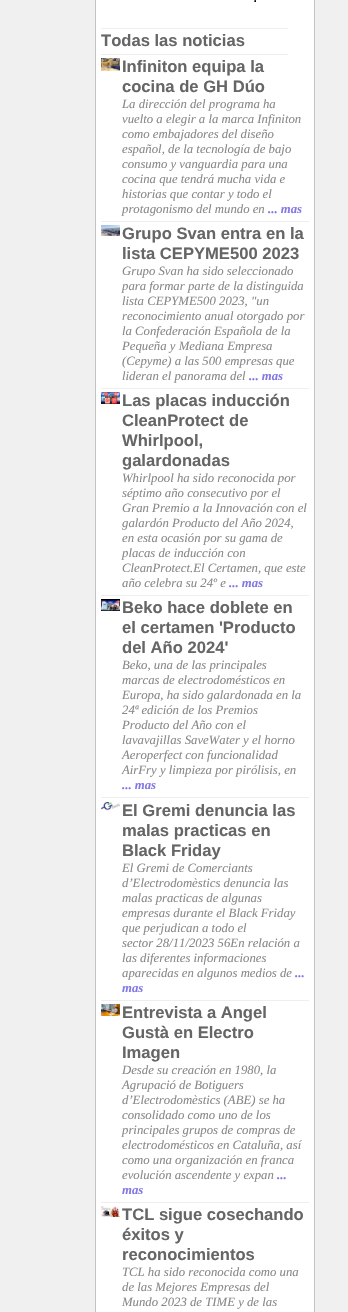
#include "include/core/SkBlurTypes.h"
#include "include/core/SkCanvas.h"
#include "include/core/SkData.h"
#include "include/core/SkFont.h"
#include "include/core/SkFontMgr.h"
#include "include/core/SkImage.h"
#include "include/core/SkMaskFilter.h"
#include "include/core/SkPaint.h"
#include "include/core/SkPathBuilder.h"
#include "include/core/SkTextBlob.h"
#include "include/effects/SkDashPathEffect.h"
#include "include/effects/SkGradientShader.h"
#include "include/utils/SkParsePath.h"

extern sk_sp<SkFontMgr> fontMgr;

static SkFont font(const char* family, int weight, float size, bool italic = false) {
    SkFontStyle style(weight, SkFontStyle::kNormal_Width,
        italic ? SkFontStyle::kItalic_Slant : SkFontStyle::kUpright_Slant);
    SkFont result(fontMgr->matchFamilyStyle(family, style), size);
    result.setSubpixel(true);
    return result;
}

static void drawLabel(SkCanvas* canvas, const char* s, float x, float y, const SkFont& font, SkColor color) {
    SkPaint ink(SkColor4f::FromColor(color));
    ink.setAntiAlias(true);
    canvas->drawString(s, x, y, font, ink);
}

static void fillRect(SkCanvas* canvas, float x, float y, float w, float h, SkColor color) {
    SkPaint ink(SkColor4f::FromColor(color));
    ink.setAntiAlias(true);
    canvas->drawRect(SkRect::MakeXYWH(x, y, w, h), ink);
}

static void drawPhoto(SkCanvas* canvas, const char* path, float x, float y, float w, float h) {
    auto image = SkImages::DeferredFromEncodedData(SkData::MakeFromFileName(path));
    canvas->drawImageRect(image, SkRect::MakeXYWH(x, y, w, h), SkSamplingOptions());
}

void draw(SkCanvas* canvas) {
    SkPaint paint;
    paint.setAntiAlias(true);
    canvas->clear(0xFFF0F0F0);
    paint.setColor(0xFFFFFFFF);
    canvas->drawRect(SkRect::MakeXYWH(95.5f, -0.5f, 219, 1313), paint);
    paint.setStroke(true);
    paint.setStrokeWidth(1);
    paint.setColor(0xFFC3C3C3);
    canvas->drawRect(SkRect::MakeXYWH(95.5f, -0.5f, 219, 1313), paint);
    SkFont font1 = font("Liberation Sans", 400, 16);
    drawLabel(canvas, ".", 253, 2, font1, 0xFF000000);
    fillRect(canvas, 101, 28, 187, 1, 0xFFEEEEEE);
    fillRect(canvas, 101, 54, 187, 1, 0xFFEEEEEE);
    SkFont font2 = font("Liberation Sans", 700, 16.6f);
    drawLabel(canvas, "Todas las noticias", 101, 46, font2, 0xFF666666);
    fillRect(canvas, 101, 221, 208, 1, 0xFFEEEEEE);
    drawPhoto(canvas, "assets/img1.png", 101, 58, 19, 13);
    drawLabel(canvas, "Infiniton equipa la", 122, 72, font2, 0xFF666666);
    drawLabel(canvas, "cocina de GH Dúo", 122, 92, font2, 0xFF666666);
    SkFont font3 = font("Liberation Serif", 400, 12.75f, true);
    drawLabel(canvas, "La dirección del programa ha", 122, 108, font3, 0xFF888888);
    drawLabel(canvas, "vuelto a elegir a la marca Infiniton", 122, 123, font3, 0xFF888888);
    drawLabel(canvas, "como embajadores del diseño", 122, 138, font3, 0xFF888888);
    drawLabel(canvas, "español, de la tecnología de bajo", 122, 153, font3, 0xFF888888);
    drawLabel(canvas, "consumo y vanguardia para una", 122, 168, font3, 0xFF888888);
    drawLabel(canvas, "cocina que tendrá mucha vida e", 122, 183, font3, 0xFF888888);
    drawLabel(canvas, "historias que contar y todo el", 122, 198, font3, 0xFF888888);
    drawLabel(canvas, "protagonismo del mundo en", 122, 213, font3, 0xFF888888);
    SkFont font4 = font("Liberation Serif", 700, 12.75f, true);
    drawLabel(canvas, "... mas", 268, 213, font4, 0xFF8279E4);
    fillRect(canvas, 101, 388, 208, 1, 0xFFEEEEEE);
    drawPhoto(canvas, "assets/img2.png", 101, 225, 19, 11);
    drawLabel(canvas, "Grupo Svan entra en la", 122, 239, font2, 0xFF666666);
    drawLabel(canvas, "lista CEPYME500 2023", 122, 259, font2, 0xFF666666);
    drawLabel(canvas, "Grupo Svan ha sido seleccionado", 122, 275, font3, 0xFF888888);
    drawLabel(canvas, "para formar parte de la distinguida", 122, 290, font3, 0xFF888888);
    drawLabel(canvas, "lista CEPYME500 2023, \"un", 122, 305, font3, 0xFF888888);
    drawLabel(canvas, "reconocimiento anual otorgado por", 122, 320, font3, 0xFF888888);
    drawLabel(canvas, "la Confederación Española de la", 122, 335, font3, 0xFF888888);
    drawLabel(canvas, "Pequeña y Mediana Empresa", 122, 350, font3, 0xFF888888);
    drawLabel(canvas, "(Cepyme) a las 500 empresas que", 122, 365, font3, 0xFF888888);
    drawLabel(canvas, "lideran el panorama del", 122, 380, font3, 0xFF888888);
    drawLabel(canvas, "... mas", 249, 380, font4, 0xFF8279E4);
    fillRect(canvas, 101, 595, 208, 1, 0xFFEEEEEE);
    drawPhoto(canvas, "assets/img3.png", 101, 392, 19, 12);
    drawLabel(canvas, "Las placas inducción", 122, 406, font2, 0xFF666666);
    drawLabel(canvas, "CleanProtect de", 122, 426, font2, 0xFF666666);
    drawLabel(canvas, "Whirlpool,", 122, 446, font2, 0xFF666666);
    drawLabel(canvas, "galardonadas", 122, 466, font2, 0xFF666666);
    drawLabel(canvas, "Whirlpool ha sido reconocida por", 122, 482, font3, 0xFF888888);
    drawLabel(canvas, "séptimo año consecutivo por el", 122, 497, font3, 0xFF888888);
    drawLabel(canvas, "Gran Premio a la Innovación con el", 122, 512, font3, 0xFF888888);
    drawLabel(canvas, "galardón Producto del Año 2024,", 122, 527, font3, 0xFF888888);
    drawLabel(canvas, "en esta ocasión por su gama de", 122, 542, font3, 0xFF888888);
    drawLabel(canvas, "placas de inducción con", 122, 557, font3, 0xFF888888);
    drawLabel(canvas, "CleanProtect.El Certamen, que este", 122, 572, font3, 0xFF888888);
    drawLabel(canvas, "año celebra su 24º e", 122, 587, font3, 0xFF888888);
    drawLabel(canvas, "... mas", 229, 587, font4, 0xFF8279E4);
    fillRect(canvas, 101, 797, 208, 1, 0xFFEEEEEE);
    drawPhoto(canvas, "assets/img4.png", 101, 599, 19, 12);
    drawLabel(canvas, "Beko hace doblete en", 122, 613, font2, 0xFF666666);
    drawLabel(canvas, "el certamen 'Producto", 122, 633, font2, 0xFF666666);
    drawLabel(canvas, "del Año 2024'", 122, 653, font2, 0xFF666666);
    drawLabel(canvas, "Beko, una de las principales", 122, 669, font3, 0xFF888888);
    drawLabel(canvas, "marcas de electrodomésticos en", 122, 684, font3, 0xFF888888);
    drawLabel(canvas, "Europa, ha sido galardonada en la", 122, 699, font3, 0xFF888888);
    drawLabel(canvas, "24ª edición de los Premios", 122, 714, font3, 0xFF888888);
    drawLabel(canvas, "Producto del Año con el", 122, 729, font3, 0xFF888888);
    drawLabel(canvas, "lavavajillas SaveWater y el horno", 122, 744, font3, 0xFF888888);
    drawLabel(canvas, "Aeroperfect con funcionalidad", 122, 759, font3, 0xFF888888);
    drawLabel(canvas, "AirFry y limpieza por pirólisis, en", 122, 774, font3, 0xFF888888);
    drawLabel(canvas, "... mas", 122, 789, font4, 0xFF8279E4);
    fillRect(canvas, 101, 1000, 208, 1, 0xFFEEEEEE);
    drawPhoto(canvas, "assets/img5.png", 101, 802, 19, 9);
    drawLabel(canvas, "El Gremi denuncia las", 122, 816, font2, 0xFF666666);
    drawLabel(canvas, "malas practicas en", 122, 836, font2, 0xFF666666);
    drawLabel(canvas, "Black Friday", 122, 856, font2, 0xFF666666);
    drawLabel(canvas, "El Gremi de Comerciants", 122, 872, font3, 0xFF888888);
    drawLabel(canvas, "d’Electrodomèstics denuncia las", 122, 887, font3, 0xFF888888);
    drawLabel(canvas, "malas practicas de algunas", 122, 902, font3, 0xFF888888);
    drawLabel(canvas, "empresas durante el Black Friday", 122, 917, font3, 0xFF888888);
    drawLabel(canvas, "que perjudican a todo el", 122, 932, font3, 0xFF888888);
    drawLabel(canvas, "sector 28/11/2023 56En relación a", 122, 947, font3, 0xFF888888);
    drawLabel(canvas, "las diferentes informaciones", 122, 962, font3, 0xFF888888);
    drawLabel(canvas, "aparecidas en algunos medios de", 122, 977, font3, 0xFF888888);
    drawLabel(canvas, "...", 295, 977, font4, 0xFF8279E4);
    drawLabel(canvas, "mas", 122, 992, font4, 0xFF8279E4);
    fillRect(canvas, 101, 1202, 208, 1, 0xFFEEEEEE);
    drawPhoto(canvas, "assets/img6.png", 101, 1004, 19, 12);
    drawLabel(canvas, "Entrevista a Angel", 122, 1018, font2, 0xFF666666);
    drawLabel(canvas, "Gustà en Electro", 122, 1038, font2, 0xFF666666);
    drawLabel(canvas, "Imagen", 122, 1058, font2, 0xFF666666);
    drawLabel(canvas, "Desde su creación en 1980, la", 122, 1074, font3, 0xFF888888);
    drawLabel(canvas, "Agrupació de Botiguers", 122, 1089, font3, 0xFF888888);
    drawLabel(canvas, "d’Electrodomèstics (ABE) se ha", 122, 1104, font3, 0xFF888888);
    drawLabel(canvas, "consolidado como uno de los", 122, 1119, font3, 0xFF888888);
    drawLabel(canvas, "principales grupos de compras de", 122, 1134, font3, 0xFF888888);
    drawLabel(canvas, "electrodomésticos en Cataluña, así", 122, 1149, font3, 0xFF888888);
    drawLabel(canvas, "como una organización en franca", 122, 1164, font3, 0xFF888888);
    drawLabel(canvas, "evolución ascendente y expan", 122, 1179, font3, 0xFF888888);
    drawLabel(canvas, "...", 277, 1179, font4, 0xFF8279E4);
    drawLabel(canvas, "mas", 122, 1194, font4, 0xFF8279E4);
    drawPhoto(canvas, "assets/img7.png", 101, 1206, 19, 11);
    drawLabel(canvas, "TCL sigue cosechando", 122, 1220, font2, 0xFF666666);
    drawLabel(canvas, "éxitos y", 122, 1240, font2, 0xFF666666);
    drawLabel(canvas, "reconocimientos", 122, 1260, font2, 0xFF666666);
    drawLabel(canvas, "TCL ha sido reconocida como una", 122, 1276, font3, 0xFF888888);
    drawLabel(canvas, "de las Mejores Empresas del", 122, 1291, font3, 0xFF888888);
    drawLabel(canvas, "Mundo 2023 de TIME y de las", 122, 1306, font3, 0xFF888888);
}
